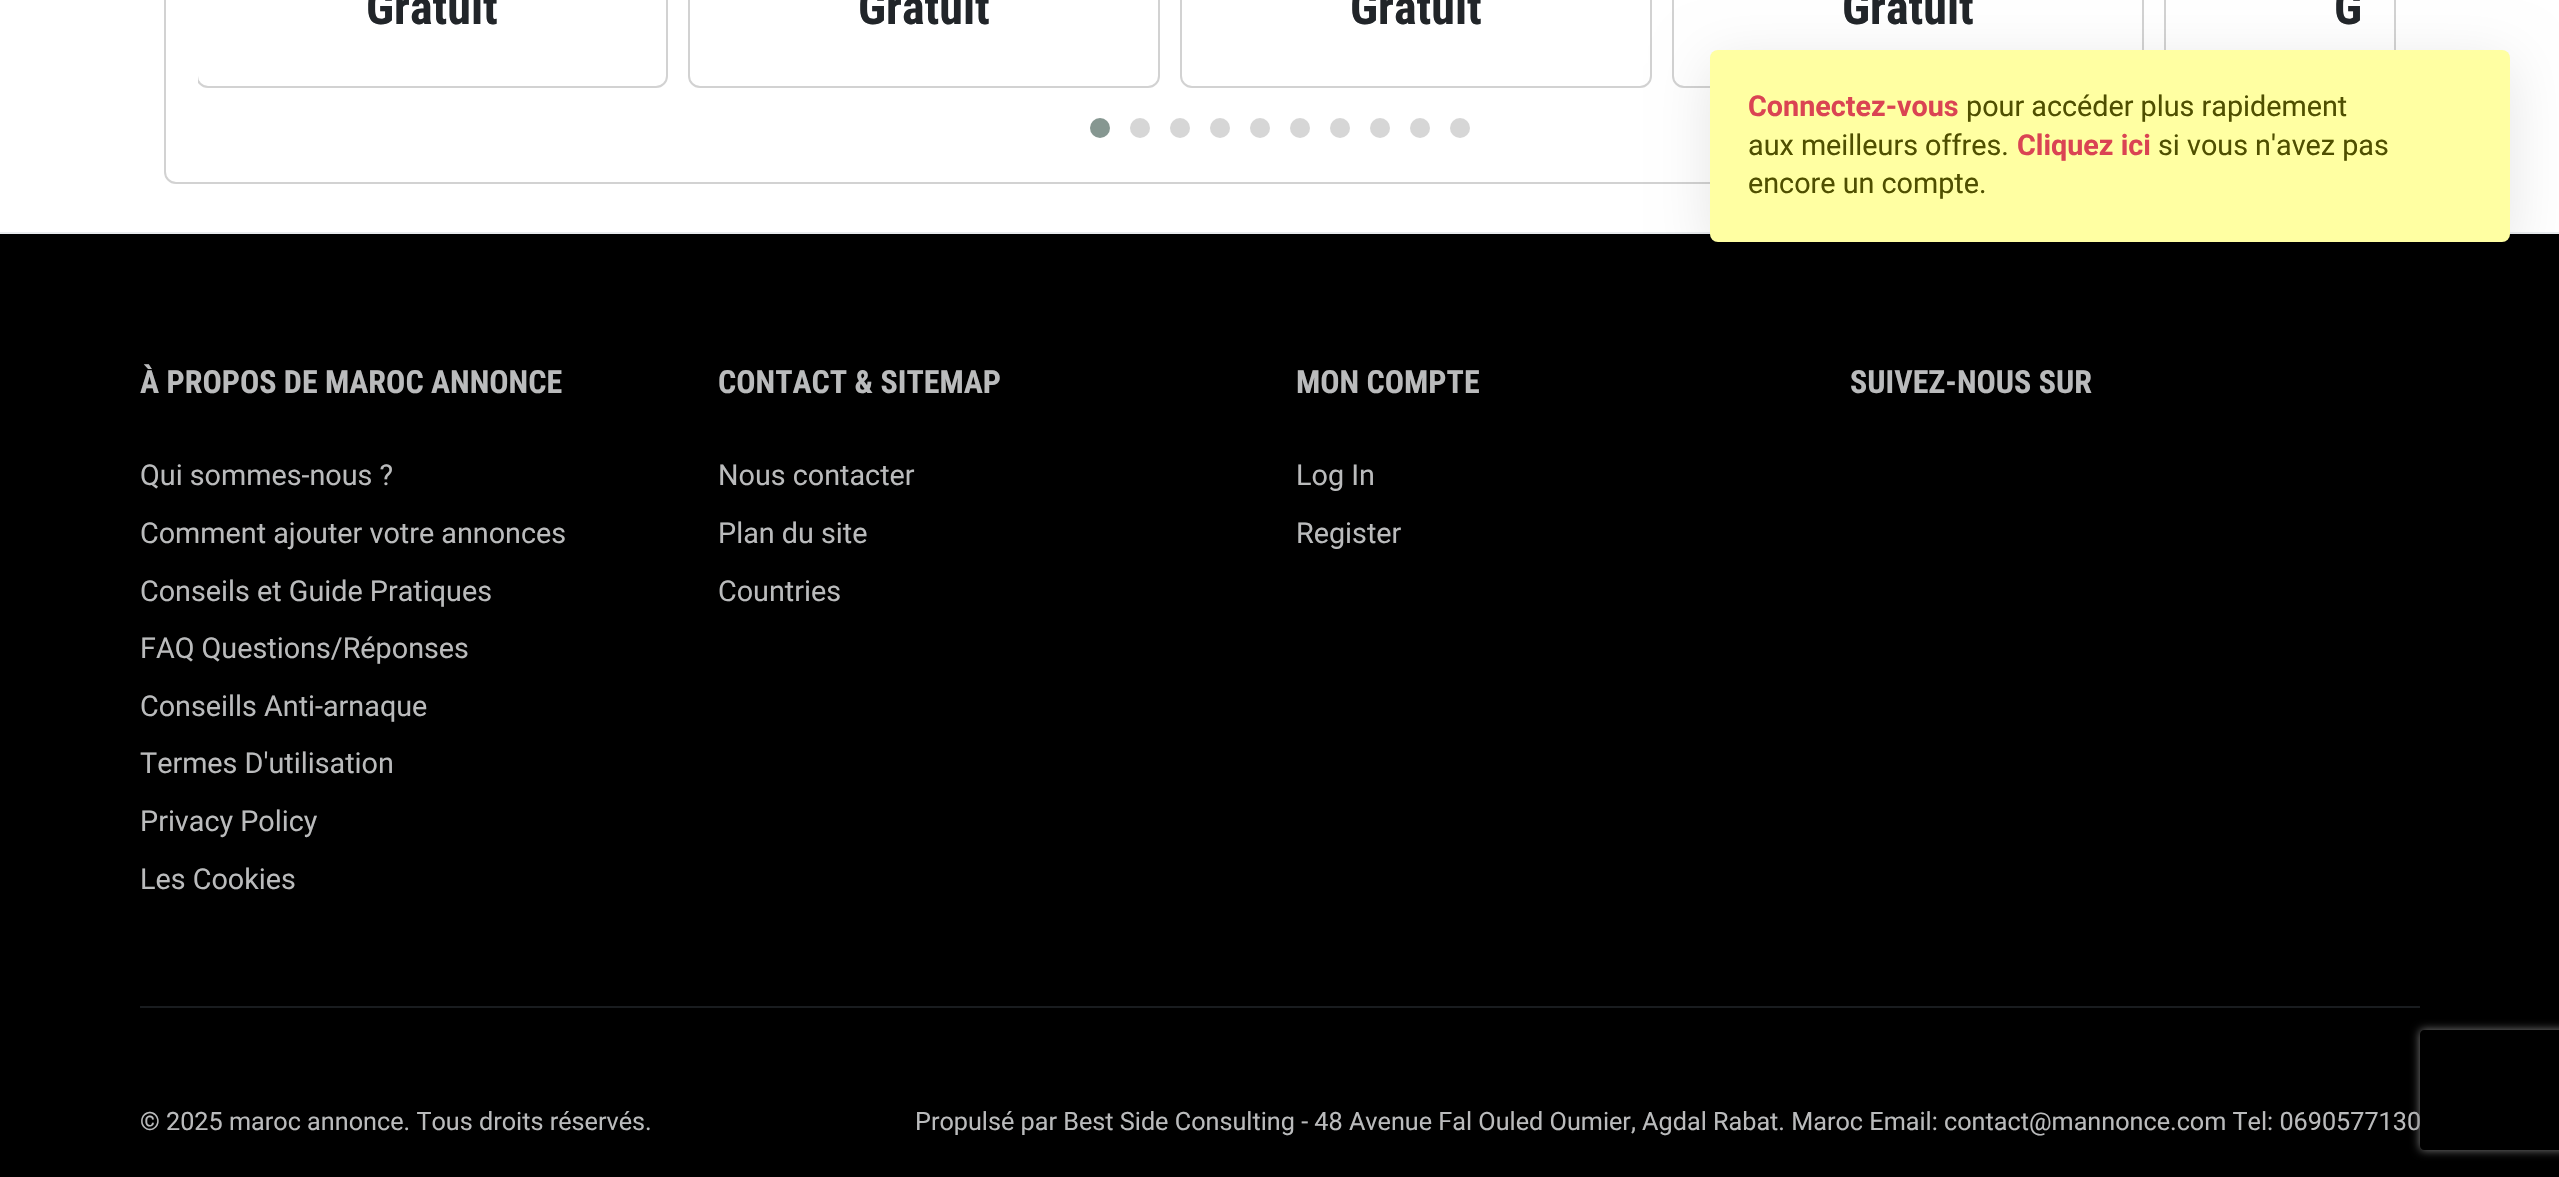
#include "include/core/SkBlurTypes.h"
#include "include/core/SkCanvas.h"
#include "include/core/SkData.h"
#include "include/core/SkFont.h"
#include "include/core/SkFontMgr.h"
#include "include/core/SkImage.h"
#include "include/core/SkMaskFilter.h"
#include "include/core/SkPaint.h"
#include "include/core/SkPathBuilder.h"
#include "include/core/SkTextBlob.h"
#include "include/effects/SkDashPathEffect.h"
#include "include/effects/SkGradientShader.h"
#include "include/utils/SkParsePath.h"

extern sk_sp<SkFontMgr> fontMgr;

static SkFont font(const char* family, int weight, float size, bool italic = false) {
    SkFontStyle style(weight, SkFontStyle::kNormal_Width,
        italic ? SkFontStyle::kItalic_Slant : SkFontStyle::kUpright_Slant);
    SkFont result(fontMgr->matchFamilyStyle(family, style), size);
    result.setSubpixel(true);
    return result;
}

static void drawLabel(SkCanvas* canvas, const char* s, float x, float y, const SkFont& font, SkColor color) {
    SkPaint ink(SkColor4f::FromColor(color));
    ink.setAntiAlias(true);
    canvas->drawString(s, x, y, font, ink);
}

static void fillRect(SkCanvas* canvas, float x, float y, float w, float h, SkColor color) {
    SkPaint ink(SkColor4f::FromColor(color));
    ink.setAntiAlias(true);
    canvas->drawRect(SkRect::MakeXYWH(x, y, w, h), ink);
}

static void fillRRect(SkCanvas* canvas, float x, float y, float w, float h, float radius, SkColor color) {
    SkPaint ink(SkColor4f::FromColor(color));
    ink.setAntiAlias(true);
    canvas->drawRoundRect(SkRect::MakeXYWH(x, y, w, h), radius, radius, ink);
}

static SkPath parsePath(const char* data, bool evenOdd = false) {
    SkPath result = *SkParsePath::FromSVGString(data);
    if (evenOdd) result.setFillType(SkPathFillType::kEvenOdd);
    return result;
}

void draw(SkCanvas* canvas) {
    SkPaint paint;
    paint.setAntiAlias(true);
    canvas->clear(0xFFFFFFFF);
    paint.setStroke(true);
    paint.setStrokeWidth(2);
    paint.setColor(0xFFD2D2D2);
    canvas->drawRoundRect(SkRect::MakeXYWH(165, -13, 2230, 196), 11, 11, paint);
    canvas->save();
    canvas->clipRect(SkRect::MakeXYWH(198, 0, 2164, 88));
    canvas->drawRoundRect(SkRect::MakeXYWH(197, -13, 470, 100), 11, 11, paint);
    canvas->restore();
    SkFont font1 = font("Roboto Condensed", 700, 48);
    drawLabel(canvas, "Gratuit", 366, 24, font1, 0xFF212529);
    canvas->drawRoundRect(SkRect::MakeXYWH(689, -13, 470, 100), 11, 11, paint);
    drawLabel(canvas, "Gratuit", 858, 24, font1, 0xFF212529);
    canvas->drawRoundRect(SkRect::MakeXYWH(1181, -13, 470, 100), 11, 11, paint);
    drawLabel(canvas, "Gratuit", 1350, 24, font1, 0xFF212529);
    canvas->drawRoundRect(SkRect::MakeXYWH(1673, -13, 470, 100), 11, 11, paint);
    drawLabel(canvas, "Gratuit", 1842, 24, font1, 0xFF212529);
    canvas->save();
    canvas->clipRect(SkRect::MakeXYWH(198, 0, 2164, 88));
    canvas->drawRoundRect(SkRect::MakeXYWH(2165, -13, 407, 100), 11, 11, paint);
    canvas->restore();
    drawLabel(canvas, "G", 2334, 24, font1, 0xFF212529);
    paint.setStroke(false);
    paint.setColor(0xFF869791);
    canvas->drawCircle(1100, 128, 10, paint);
    paint.setColor(0xFFD6D6D6);
    canvas->drawCircle(1140, 128, 10, paint);
    canvas->drawCircle(1180, 128, 10, paint);
    canvas->drawCircle(1220, 128, 10, paint);
    canvas->drawCircle(1260, 128, 10, paint);
    canvas->drawCircle(1300, 128, 10, paint);
    canvas->drawCircle(1340, 128, 10, paint);
    canvas->drawCircle(1380, 128, 10, paint);
    canvas->drawCircle(1420, 128, 10, paint);
    canvas->drawCircle(1460, 128, 10, paint);
    fillRect(canvas, 0, 234, 2559, 943, 0xFF000000);
    fillRect(canvas, 0, 232, 2559, 2, 0xFFE9ECEF);
    paint.setColor(0x1A000000);
    paint.setMaskFilter(SkMaskFilter::MakeBlur(kNormal_SkBlurStyle, 28));
    canvas->drawRoundRect(SkRect::MakeXYWH(1710, 62, 800, 192), 8, 8, paint);
    paint.setMaskFilter(nullptr);
    fillRRect(canvas, 1710, 50, 800, 192, 8, 0xFFFFFFA2);
    SkFont font2 = font("Roboto", 700, 28.75f);
    drawLabel(canvas, "Connectez-vous", 1748, 116, font2, 0xFFDA4453);
    SkFont font3 = font("Roboto", 400, 28.75f);
    drawLabel(canvas, "pour accéder plus rapidement", 1966, 116, font3, 0xFF4F4F00);
    drawLabel(canvas, "aux meilleurs offres.", 1748, 155, font3, 0xFF4F4F00);
    drawLabel(canvas, "Cliquez ici", 2017, 155, font2, 0xFFDA4453);
    drawLabel(canvas, "si vous n'avez pas", 2158, 155, font3, 0xFF4F4F00);
    drawLabel(canvas, "encore un compte.", 1748, 193, font3, 0xFF4F4F00);
    SkFont font4 = font("Roboto Condensed", 700, 32);
    drawLabel(canvas, "À PROPOS DE MAROC ANNONCE", 140, 393, font4, 0xFFBABBBC);
    drawLabel(canvas, "Qui sommes-nous ?", 140, 485, font3, 0xFFBABBBC);
    drawLabel(canvas, "Comment ajouter votre annonces", 140, 543, font3, 0xFFBABBBC);
    drawLabel(canvas, "Conseils et Guide Pratiques", 140, 601, font3, 0xFFBABBBC);
    drawLabel(canvas, "FAQ Questions/Réponses", 140, 658, font3, 0xFFBABBBC);
    drawLabel(canvas, "Conseills Anti-arnaque", 140, 716, font3, 0xFFBABBBC);
    drawLabel(canvas, "Termes D'utilisation", 140, 773, font3, 0xFFBABBBC);
    drawLabel(canvas, "Privacy Policy", 140, 831, font3, 0xFFBABBBC);
    drawLabel(canvas, "Les Cookies", 140, 889, font3, 0xFFBABBBC);
    drawLabel(canvas, "CONTACT & SITEMAP", 718, 393, font4, 0xFFBABBBC);
    drawLabel(canvas, "Nous contacter", 718, 485, font3, 0xFFBABBBC);
    drawLabel(canvas, "Plan du site", 718, 543, font3, 0xFFBABBBC);
    drawLabel(canvas, "Countries", 718, 601, font3, 0xFFBABBBC);
    drawLabel(canvas, "MON COMPTE", 1296, 393, font4, 0xFFBABBBC);
    drawLabel(canvas, "Log In", 1296, 485, font3, 0xFFBABBBC);
    drawLabel(canvas, "Register", 1296, 543, font3, 0xFFBABBBC);
    drawLabel(canvas, "SUIVEZ-NOUS SUR", 1850, 393, font4, 0xFFBABBBC);
    fillRect(canvas, 140, 1006, 2280, 2, 0xFF191C1F);
    SkFont font5 = font("Roboto", 400, 25.2f);
    drawLabel(canvas, "© 2025 maroc annonce. Tous droits réservés.", 140, 1130, font5, 0xFFBABBBC);
    drawLabel(canvas, "Propulsé par Best Side Consulting - 48 Avenue Fal Ouled Oumier, Agdal Rabat. Maroc Email: contact@mannonce.com Tel: 0690577130", 915, 1130, font5, 0xFFBABBBC);
    canvas->save();
    canvas->clipPath(parsePath("M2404 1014H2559V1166H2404ZM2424 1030H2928C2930 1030 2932 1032 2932 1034V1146C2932 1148 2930 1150 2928 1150H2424C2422 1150 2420 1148 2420 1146V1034C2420 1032 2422 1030 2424 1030Z", true), true);
    paint.setColor(0xFF808080);
    paint.setMaskFilter(SkMaskFilter::MakeBlur(kNormal_SkBlurStyle, 5));
    canvas->drawRoundRect(SkRect::MakeXYWH(2420, 1030, 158, 120), 4, 4, paint);
    paint.setMaskFilter(nullptr);
    canvas->restore();
}
